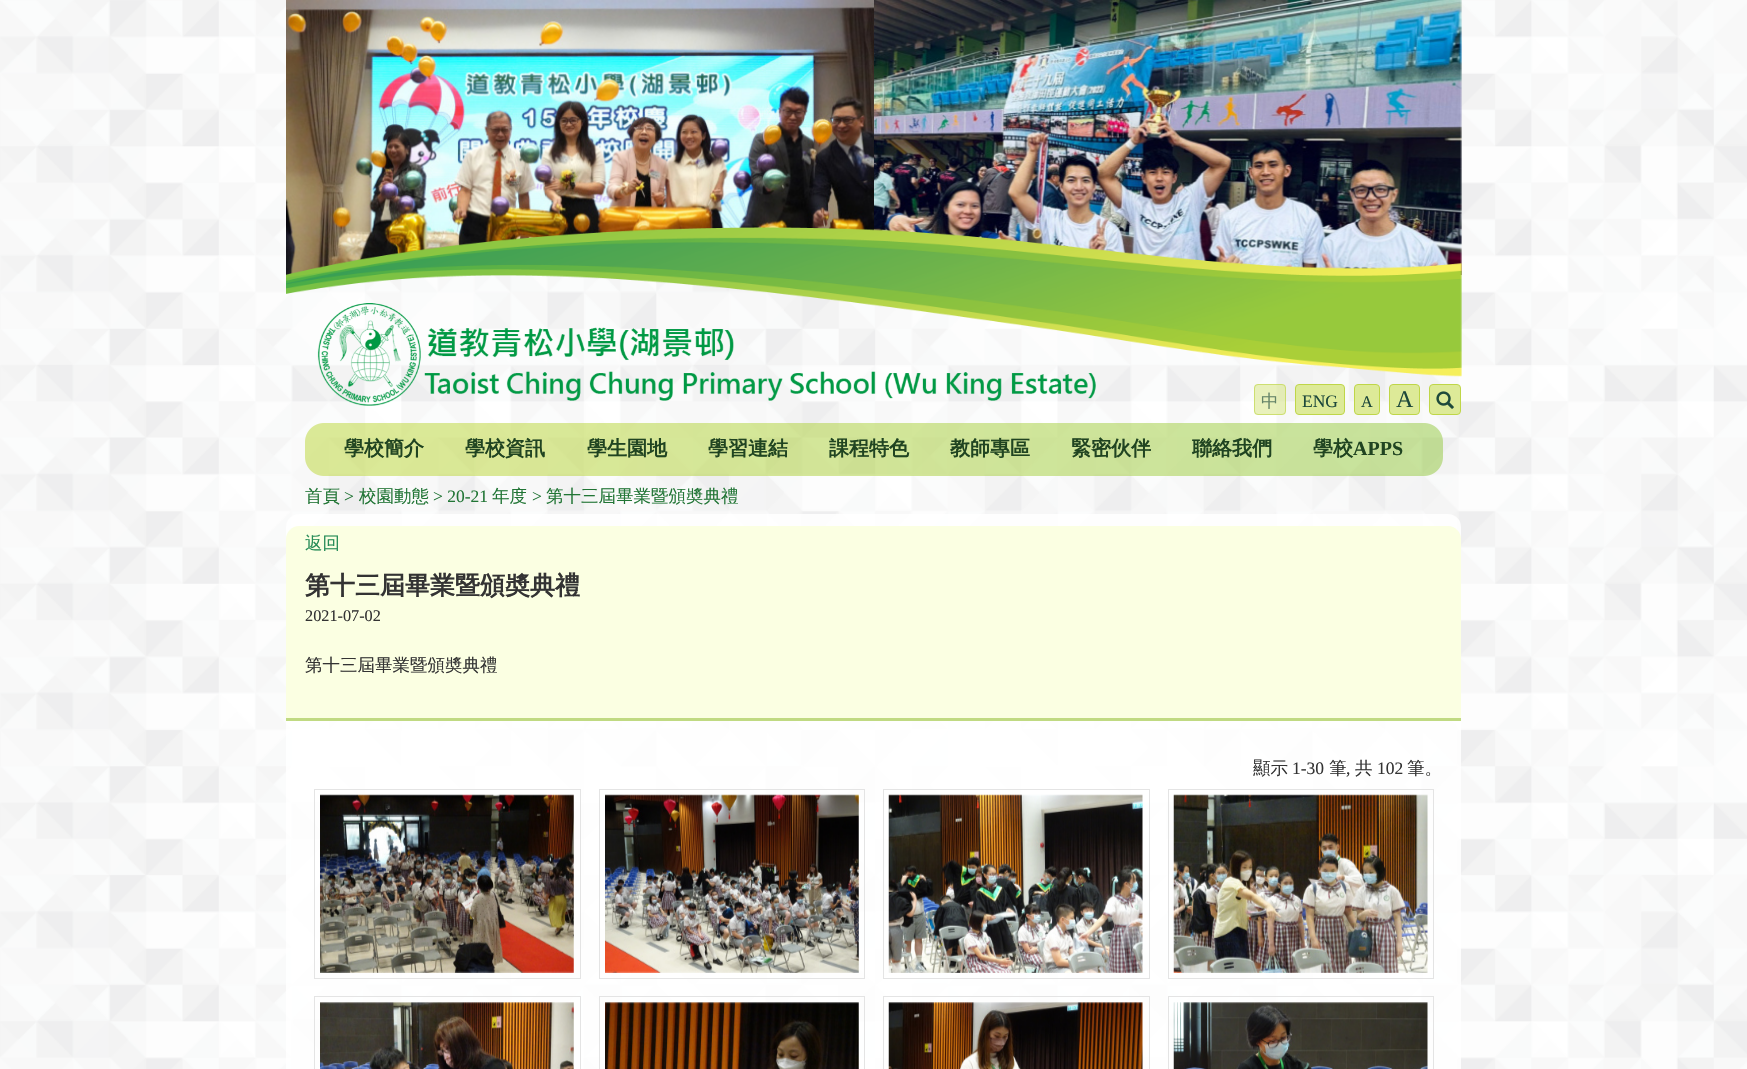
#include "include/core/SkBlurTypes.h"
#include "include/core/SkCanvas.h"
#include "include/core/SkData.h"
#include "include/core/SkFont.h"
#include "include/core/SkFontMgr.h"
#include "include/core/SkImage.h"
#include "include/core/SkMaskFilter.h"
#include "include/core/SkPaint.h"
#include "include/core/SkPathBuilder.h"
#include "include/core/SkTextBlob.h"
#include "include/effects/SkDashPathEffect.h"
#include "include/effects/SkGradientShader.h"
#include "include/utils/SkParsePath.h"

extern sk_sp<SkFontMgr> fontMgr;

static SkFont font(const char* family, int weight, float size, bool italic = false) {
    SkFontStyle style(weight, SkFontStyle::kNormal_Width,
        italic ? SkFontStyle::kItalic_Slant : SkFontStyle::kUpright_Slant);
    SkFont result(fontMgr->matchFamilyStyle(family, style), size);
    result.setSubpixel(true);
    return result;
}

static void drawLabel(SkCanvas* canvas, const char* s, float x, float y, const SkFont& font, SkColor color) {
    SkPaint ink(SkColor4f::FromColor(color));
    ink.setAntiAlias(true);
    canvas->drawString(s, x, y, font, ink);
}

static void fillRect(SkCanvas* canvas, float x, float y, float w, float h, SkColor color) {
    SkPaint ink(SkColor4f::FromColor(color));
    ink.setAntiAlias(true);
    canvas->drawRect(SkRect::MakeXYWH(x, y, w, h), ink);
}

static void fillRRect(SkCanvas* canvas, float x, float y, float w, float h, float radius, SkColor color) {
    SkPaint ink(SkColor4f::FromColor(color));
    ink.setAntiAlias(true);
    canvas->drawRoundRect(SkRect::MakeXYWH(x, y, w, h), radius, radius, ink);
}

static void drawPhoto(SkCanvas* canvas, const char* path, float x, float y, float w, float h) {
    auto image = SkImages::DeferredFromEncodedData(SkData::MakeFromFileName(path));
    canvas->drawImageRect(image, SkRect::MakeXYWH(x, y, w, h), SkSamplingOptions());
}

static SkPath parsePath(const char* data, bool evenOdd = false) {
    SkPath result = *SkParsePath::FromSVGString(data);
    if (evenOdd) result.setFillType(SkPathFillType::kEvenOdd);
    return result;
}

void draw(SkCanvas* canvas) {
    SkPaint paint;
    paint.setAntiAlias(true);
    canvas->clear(0xFFFFFFFF);
    drawPhoto(canvas, "assets/img1.png", 0, 0, 1747, 1069);
    drawPhoto(canvas, "assets/img2.png", 286, 0, 588, 275);
    drawPhoto(canvas, "assets/img3.png", 874, 0, 588, 275);
    drawPhoto(canvas, "assets/img4.png", 286, 227, 1176, 150);
    drawPhoto(canvas, "assets/img5.png", 317, 303, 779, 103);
    fillRRect(canvas, 1254, 384, 32, 31, 4, 0xA6DDEA98);
    paint.setStroke(true);
    paint.setStrokeWidth(1);
    paint.setColor(0xA6BFD648);
    canvas->drawRoundRect(SkRect::MakeXYWH(1254.5f, 384.5f, 31, 30), 3.5f, 3.5f, paint);
    SkFont font1 = font("WenQuanYi Zen Hei", 500, 17.5f);
    drawLabel(canvas, "中", 1261, 407, font1, 0xFF658468);
    paint.setStroke(false);
    paint.setColor(0xFFDDEA98);
    canvas->drawRoundRect(SkRect::MakeXYWH(1295.5f, 384.5f, 49, 30), 3.5f, 3.5f, paint);
    paint.setStroke(true);
    paint.setColor(0xFFBFD648);
    canvas->drawRoundRect(SkRect::MakeXYWH(1295.5f, 384.5f, 49, 30), 3.5f, 3.5f, paint);
    SkFont font2 = font("Liberation Serif", 400, 17.5f);
    drawLabel(canvas, "ENG", 1302, 407, font2, 0xFF1E493B);
    paint.setStroke(false);
    paint.setColor(0xFFDDEA98);
    canvas->drawRoundRect(SkRect::MakeXYWH(1354.5f, 384.5f, 25, 30), 3.5f, 3.5f, paint);
    paint.setStroke(true);
    paint.setColor(0xFFBFD648);
    canvas->drawRoundRect(SkRect::MakeXYWH(1354.5f, 384.5f, 25, 30), 3.5f, 3.5f, paint);
    SkFont font3 = font("Liberation Serif", 400, 16.25f);
    drawLabel(canvas, "A", 1361, 407, font3, 0xFF1E493B);
    paint.setStroke(false);
    paint.setColor(0xFFDDEA98);
    canvas->drawRoundRect(SkRect::MakeXYWH(1389.5f, 384.5f, 30, 30), 3.5f, 3.5f, paint);
    paint.setStroke(true);
    paint.setColor(0xFFBFD648);
    canvas->drawRoundRect(SkRect::MakeXYWH(1389.5f, 384.5f, 30, 30), 3.5f, 3.5f, paint);
    SkFont font4 = font("Liberation Serif", 400, 24);
    drawLabel(canvas, "A", 1396, 407, font4, 0xFF1E493B);
    paint.setStroke(false);
    paint.setColor(0xFFDDEA98);
    canvas->drawRoundRect(SkRect::MakeXYWH(1429.5f, 384.5f, 31, 30), 3.5f, 3.5f, paint);
    paint.setStroke(true);
    paint.setColor(0xFFBFD648);
    canvas->drawRoundRect(SkRect::MakeXYWH(1429.5f, 384.5f, 31, 30), 3.5f, 3.5f, paint);
    drawPhoto(canvas, "assets/img6.png", 1436, 391, 18, 18);
    SkFont font5 = font("WenQuanYi Zen Hei", 700, 20);
    drawLabel(canvas, "學校簡介", 344, 455, font5, 0xFF204421);
    drawLabel(canvas, "學校資訊", 465, 455, font5, 0xFF204421);
    drawLabel(canvas, "學生園地", 587, 455, font5, 0xFF204421);
    drawLabel(canvas, "學習連結", 708, 455, font5, 0xFF204421);
    drawLabel(canvas, "課程特色", 829, 455, font5, 0xFF204421);
    drawLabel(canvas, "教師專區", 950, 455, font5, 0xFF204421);
    drawLabel(canvas, "緊密伙伴", 1071, 455, font5, 0xFF204421);
    drawLabel(canvas, "聯絡我們", 1192, 455, font5, 0xFF204421);
    drawLabel(canvas, "學校", 1313, 455, font5, 0xFF204421);
    SkFont font6 = font("Liberation Serif", 700, 20);
    drawLabel(canvas, "APPS", 1353, 455, font6, 0xFF204421);
    drawLabel(canvas, "首頁", 305, 502, font1, 0xFF217535);
    drawLabel(canvas, ">", 344, 502, font2, 0xFF217535);
    drawLabel(canvas, "校園動態", 359, 502, font1, 0xFF217535);
    drawLabel(canvas, "> 20-21", 433, 502, font2, 0xFF217535);
    drawLabel(canvas, "年度", 492, 502, font1, 0xFF217535);
    drawLabel(canvas, ">", 532, 502, font2, 0xFF217535);
    drawLabel(canvas, "第十三屆畢業暨頒奬典禮", 546, 502, font1, 0xFF217535);
    fillRRect(canvas, 286, 514, 1175, 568, 13, 0xD9FFFFFF);
    paint.setStroke(false);
    paint.setColor(0xFFFBFFE2);
    canvas->drawPath(parsePath("M299 526H1448C1455 526 1461 532 1461 539V720H286V539C286 532 292 526 299 526Z"), paint);
    fillRect(canvas, 286, 718, 1175, 3, 0xFFC0DA82);
    drawLabel(canvas, "返回", 305, 549, font1, 0xFF278C58);
    SkFont font7 = font("WenQuanYi Zen Hei", 700, 25);
    drawLabel(canvas, "第十三屆畢業暨頒奬典禮", 305, 594, font7, 0xFF333333);
    drawLabel(canvas, "2021-07-02", 305, 621, font3, 0xFF333333);
    drawLabel(canvas, "第十三屆畢業暨頒奬典禮", 305, 671, font1, 0xFF333333);
    drawLabel(canvas, "顯示", 1253, 774, font1, 0xFF333333);
    drawLabel(canvas, "1-30", 1292, 774, font2, 0xFF333333);
    drawLabel(canvas, "筆", 1329, 774, font1, 0xFF333333);
    drawLabel(canvas, ",", 1346, 774, font2, 0xFF333333);
    drawLabel(canvas, "共", 1355, 774, font1, 0xFF333333);
    drawLabel(canvas, "102", 1377, 774, font2, 0xFF333333);
    drawLabel(canvas, "筆。", 1407, 774, font1, 0xFF333333);
    paint.setStroke(true);
    paint.setColor(0xFFE4E4E4);
    canvas->drawRect(SkRect::MakeXYWH(314.5f, 789.5f, 266, 189), paint);
    drawPhoto(canvas, "assets/img7.png", 320, 794, 254, 179);
    canvas->drawRect(SkRect::MakeXYWH(599.5f, 789.5f, 265, 189), paint);
    drawPhoto(canvas, "assets/img8.png", 605, 794, 254, 179);
    canvas->drawRect(SkRect::MakeXYWH(883.5f, 789.5f, 266, 189), paint);
    drawPhoto(canvas, "assets/img9.png", 888, 794, 255, 179);
    canvas->drawRect(SkRect::MakeXYWH(1168.5f, 789.5f, 265, 189), paint);
    drawPhoto(canvas, "assets/img10.png", 1173, 794, 255, 179);
    canvas->drawRect(SkRect::MakeXYWH(314.5f, 996.5f, 266, 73), paint);
    drawPhoto(canvas, "assets/img11.png", 320, 1002, 254, 67);
    canvas->drawRect(SkRect::MakeXYWH(599.5f, 996.5f, 265, 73), paint);
    drawPhoto(canvas, "assets/img12.png", 605, 1002, 254, 67);
    canvas->drawRect(SkRect::MakeXYWH(883.5f, 996.5f, 266, 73), paint);
    drawPhoto(canvas, "assets/img13.png", 888, 1002, 255, 67);
    canvas->drawRect(SkRect::MakeXYWH(1168.5f, 996.5f, 265, 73), paint);
    drawPhoto(canvas, "assets/img14.png", 1173, 1002, 255, 67);
}
